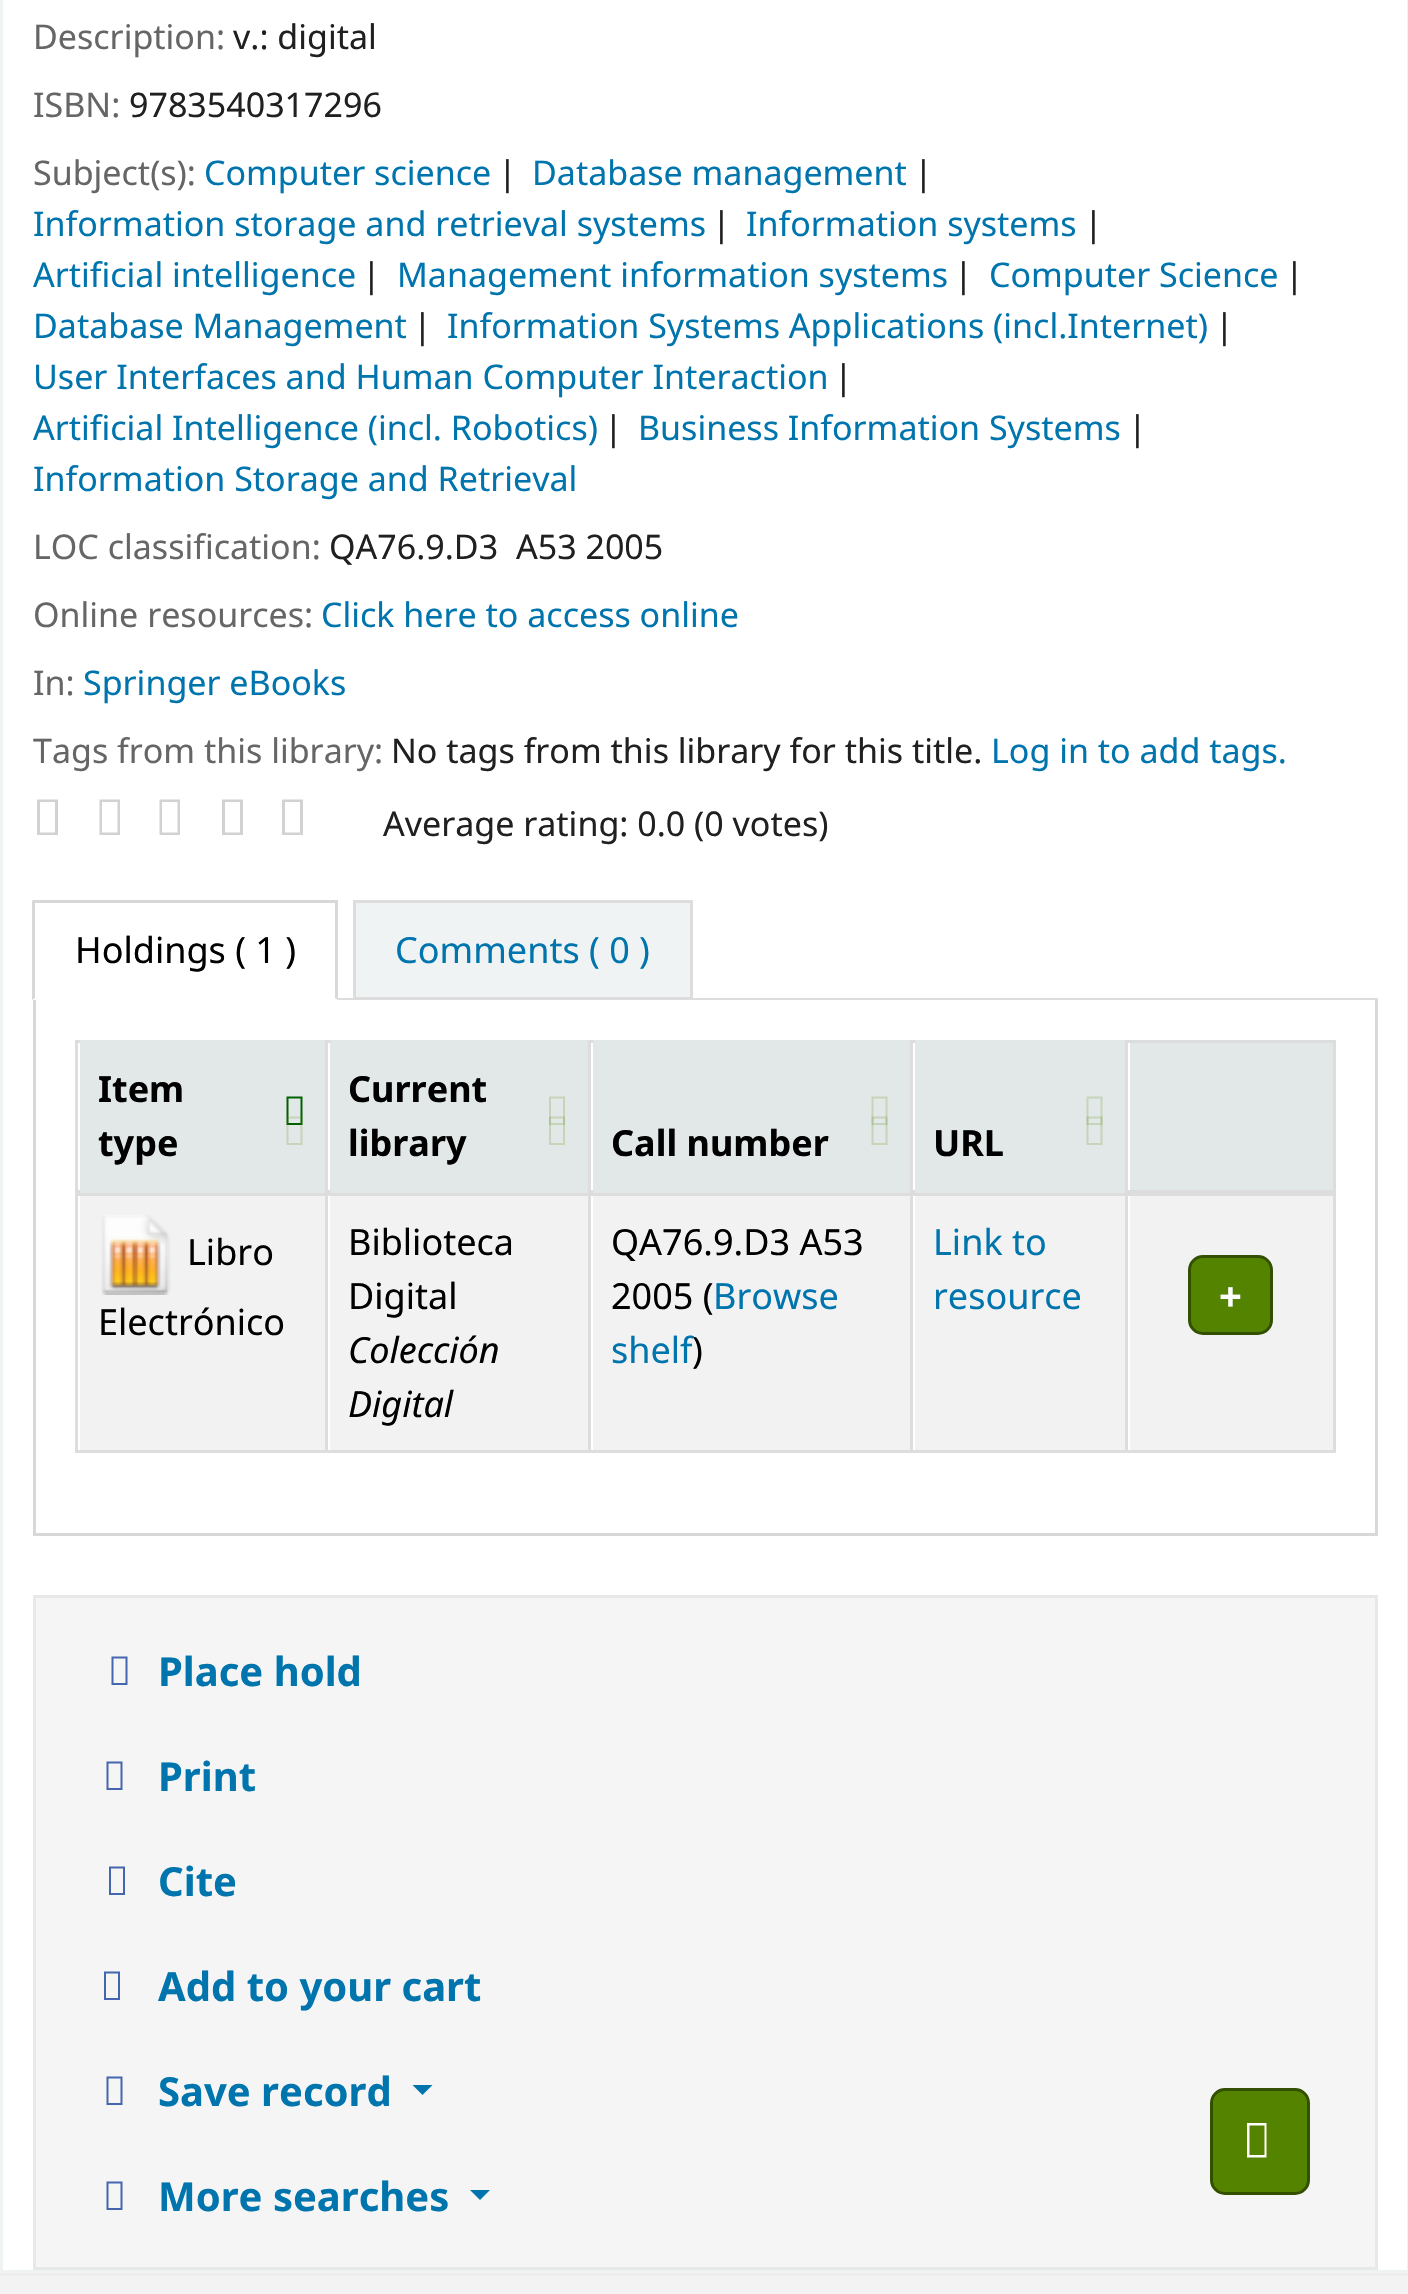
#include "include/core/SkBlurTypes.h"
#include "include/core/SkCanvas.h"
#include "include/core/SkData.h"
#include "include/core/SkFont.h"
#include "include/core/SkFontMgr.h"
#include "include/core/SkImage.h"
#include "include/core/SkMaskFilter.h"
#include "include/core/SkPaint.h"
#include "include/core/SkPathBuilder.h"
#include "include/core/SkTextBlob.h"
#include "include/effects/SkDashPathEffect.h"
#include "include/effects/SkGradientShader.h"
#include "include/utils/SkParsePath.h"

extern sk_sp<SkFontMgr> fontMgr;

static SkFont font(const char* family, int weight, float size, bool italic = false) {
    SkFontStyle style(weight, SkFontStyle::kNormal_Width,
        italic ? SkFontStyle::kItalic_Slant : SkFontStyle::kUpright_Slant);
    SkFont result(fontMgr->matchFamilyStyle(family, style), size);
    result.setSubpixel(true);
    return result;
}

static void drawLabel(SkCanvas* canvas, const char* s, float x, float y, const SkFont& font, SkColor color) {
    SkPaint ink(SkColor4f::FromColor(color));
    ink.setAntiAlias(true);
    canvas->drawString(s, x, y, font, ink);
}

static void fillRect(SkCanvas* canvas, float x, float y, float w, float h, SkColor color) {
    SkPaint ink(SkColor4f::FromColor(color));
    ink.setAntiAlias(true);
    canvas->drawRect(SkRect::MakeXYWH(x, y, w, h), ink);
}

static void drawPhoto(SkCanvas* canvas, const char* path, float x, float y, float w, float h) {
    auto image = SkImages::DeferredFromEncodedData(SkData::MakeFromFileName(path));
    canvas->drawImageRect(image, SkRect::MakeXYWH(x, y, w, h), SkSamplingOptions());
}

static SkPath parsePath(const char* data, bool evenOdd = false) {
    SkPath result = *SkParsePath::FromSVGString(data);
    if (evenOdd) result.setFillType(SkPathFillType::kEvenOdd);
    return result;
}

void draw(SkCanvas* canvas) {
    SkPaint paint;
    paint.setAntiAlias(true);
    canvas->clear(0xFFFFFFFF);
    paint.setStroke(true);
    paint.setStrokeWidth(3);
    paint.setColor(0xFFF0F3F3);
    canvas->drawRect(SkRect::MakeXYWH(1.5f, -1.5f, 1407, 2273), paint);
    SkFont font1 = font("Noto Sans", 400, 34);
    drawLabel(canvas, "Description:", 33, 49, font1, 0xFF666666);
    drawLabel(canvas, "v.: digital", 233, 49, font1, 0xFF202020);
    drawLabel(canvas, "ISBN:", 33, 117, font1, 0xFF666666);
    drawLabel(canvas, "9783540317296", 129, 117, font1, 0xFF202020);
    drawLabel(canvas, "Computer science", 204, 185, font1, 0xFF0074AD);
    drawLabel(canvas, "|", 498, 185, font1, 0xFF202020);
    drawLabel(canvas, "Database management", 532, 185, font1, 0xFF0074AD);
    drawLabel(canvas, "|", 914, 185, font1, 0xFF202020);
    drawLabel(canvas, "Information storage and retrieval systems", 33, 236, font1, 0xFF0074AD);
    drawLabel(canvas, "|", 712, 236, font1, 0xFF202020);
    drawLabel(canvas, "Information systems", 746, 236, font1, 0xFF0074AD);
    drawLabel(canvas, "|", 1084, 236, font1, 0xFF202020);
    drawLabel(canvas, "Artificial intelligence", 33, 287, font1, 0xFF0074AD);
    drawLabel(canvas, "|", 362, 287, font1, 0xFF202020);
    drawLabel(canvas, "Management information systems", 397, 287, font1, 0xFF0074AD);
    drawLabel(canvas, "|", 954, 287, font1, 0xFF202020);
    drawLabel(canvas, "Computer Science", 989, 287, font1, 0xFF0074AD);
    drawLabel(canvas, "|", 1285, 287, font1, 0xFF202020);
    drawLabel(canvas, "Database Management", 33, 338, font1, 0xFF0074AD);
    drawLabel(canvas, "|", 413, 338, font1, 0xFF202020);
    drawLabel(canvas, "Information Systems Applications (incl.Internet)", 447, 338, font1, 0xFF0074AD);
    drawLabel(canvas, "|", 1215, 338, font1, 0xFF202020);
    drawLabel(canvas, "User Interfaces and Human Computer Interaction", 33, 389, font1, 0xFF0074AD);
    drawLabel(canvas, "|", 834, 389, font1, 0xFF202020);
    drawLabel(canvas, "Artificial Intelligence (incl. Robotics)", 33, 440, font1, 0xFF0074AD);
    drawLabel(canvas, "|", 604, 440, font1, 0xFF202020);
    drawLabel(canvas, "Business Information Systems", 638, 440, font1, 0xFF0074AD);
    drawLabel(canvas, "|", 1128, 440, font1, 0xFF202020);
    drawLabel(canvas, "Information Storage and Retrieval", 33, 491, font1, 0xFF0074AD);
    drawLabel(canvas, "Subject(s):", 33, 185, font1, 0xFF666666);
    drawLabel(canvas, "LOC classification:", 33, 559, font1, 0xFF666666);
    drawLabel(canvas, "QA76.9.D3", 329, 559, font1, 0xFF202020);
    drawLabel(canvas, "A53 2005", 516, 559, font1, 0xFF202020);
    drawLabel(canvas, "Online resources:", 33, 627, font1, 0xFF666666);
    drawLabel(canvas, "Click here to access online", 321, 627, font1, 0xFF0074AD);
    drawLabel(canvas, "In:", 33, 695, font1, 0xFF666666);
    drawLabel(canvas, "Springer eBooks", 83, 695, font1, 0xFF0074AD);
    drawLabel(canvas, "Tags from this library:", 33, 763, font1, 0xFF666666);
    drawLabel(canvas, "No tags from this library for this title.", 391, 763, font1, 0xFF202020);
    drawLabel(canvas, "Log in to add tags.", 991, 763, font1, 0xFF0074AD);
    paint.setStroke(false);
    paint.setColor(0xFFD2D2D2);
    canvas->drawPath(parsePath("M37 835V799.5H58V835ZM40 832.5H55V802H40Z"), paint);
    canvas->drawPath(parsePath("M99.5 835V799.5H120V835ZM102 832.5H117.5V802H102Z"), paint);
    canvas->drawPath(parsePath("M159.5 835V799.5H180V835ZM162 832.5H177.5V802H162Z"), paint);
    canvas->drawPath(parsePath("M222 835V799.5H243V835ZM225 832.5H240V802H225Z"), paint);
    canvas->drawPath(parsePath("M282 835V799.5H303V835ZM285 832.5H300V802H285Z"), paint);
    drawLabel(canvas, "Average rating: 0.0 (0 votes)", 383, 836, font1, 0xFF202020);
    fillRect(canvas, 338, 998, 1040, 2, 0xFFDDDDDD);
    fillRect(canvas, 33, 900, 305, 3, 0xFFD8D8D8);
    paint.setColor(0xFFD8D8D8);
    canvas->drawPath(parsePath("M338 900V1000L335 998V902Z"), paint);
    canvas->drawPath(parsePath("M32 1000V900L35 902V998Z"), paint);
    SkFont font2 = font("Noto Sans", 400, 36);
    drawLabel(canvas, "Holdings ( 1 )", 75, 963, font2, 0xFF000000);
    paint.setColor(0xFFF0F3F3);
    canvas->drawRect(SkRect::MakeXYWH(354.5f, 901.5f, 337, 97), paint);
    paint.setStroke(true);
    paint.setColor(0xFFDDDDDD);
    canvas->drawRect(SkRect::MakeXYWH(354.5f, 901.5f, 337, 97), paint);
    drawLabel(canvas, "Comments ( 0 )", 395, 963, font2, 0xFF0074AD);
    fillRect(canvas, 1375, 1000, 3, 535, 0xFFD8D8D8);
    fillRect(canvas, 33, 1533, 1345, 3, 0xFFD8D8D8);
    fillRect(canvas, 33, 1000, 3, 535, 0xFFD8D8D8);
    fillRect(canvas, 75, 1040, 1260, 3, 0xFFDDDDDD);
    fillRect(canvas, 75, 1190, 1260, 6, 0xFFDDDDDD);
    fillRect(canvas, 80, 1040, 245, 153, 0xFFE2E8E8);
    SkFont font3 = font("Noto Sans", 700, 36);
    drawLabel(canvas, "Item", 98, 1102, font3, 0xFF000000);
    paint.setStroke(false);
    paint.setColor(0xFF006100);
    canvas->drawPath(parsePath("M286.5 1125V1096.5H302.5V1125ZM288.5 1123H300.5V1098.5H288.5Z"), paint);
    paint.setColor(0x33548300);
    canvas->drawPath(parsePath("M286.5 1145V1116.5H302.5V1145ZM288.5 1143H300.5V1118.5H288.5Z"), paint);
    drawLabel(canvas, "type", 98, 1156, font3, 0xFF000000);
    fillRect(canvas, 330, 1040, 258, 153, 0xFFE2E8E8);
    drawLabel(canvas, "Current", 348, 1102, font3, 0xFF000000);
    drawLabel(canvas, "library", 348, 1156, font3, 0xFF000000);
    paint.setColor(0xFFC6D4BA);
    canvas->drawPath(parsePath("M549 1125V1096.5H565V1125ZM551 1123H563V1098.5H551Z"), paint);
    paint.setColor(0x33548300);
    canvas->drawPath(parsePath("M549 1145V1116.5H565V1145ZM551 1143H563V1118.5H551Z"), paint);
    fillRect(canvas, 593, 1040, 317, 153, 0xFFE2E8E8);
    drawLabel(canvas, "Call number", 611, 1156, font3, 0xFF000000);
    paint.setColor(0xFFC6D4BA);
    canvas->drawPath(parsePath("M871.5 1125V1096.5H887.5V1125ZM873.5 1123H885.5V1098.5H873.5Z"), paint);
    paint.setColor(0x33548300);
    canvas->drawPath(parsePath("M871.5 1145V1116.5H887.5V1145ZM873.5 1143H885.5V1118.5H873.5Z"), paint);
    fillRect(canvas, 915, 1040, 210, 153, 0xFFE2E8E8);
    drawLabel(canvas, "URL", 933, 1156, font3, 0xFF000000);
    paint.setColor(0xFFC6D4BA);
    canvas->drawPath(parsePath("M1086.5 1125V1096.5H1102.5V1125ZM1088.5 1123H1100.5V1098.5H1088.5Z"), paint);
    paint.setColor(0x33548300);
    canvas->drawPath(parsePath("M1086.5 1145V1116.5H1102.5V1145ZM1088.5 1143H1100.5V1118.5H1088.5Z"), paint);
    fillRect(canvas, 1130, 1043, 203, 147, 0xFFE2E8E8);
    fillRect(canvas, 75, 1450, 1260, 3, 0xFFDDDDDD);
    fillRect(canvas, 80, 1196, 245, 254, 0xFFF2F2F2);
    fillRect(canvas, 75, 1040, 3, 413, 0xFFDDDDDD);
    drawPhoto(canvas, "assets/img1.png", 101, 1215, 70, 80);
    drawLabel(canvas, "Libro", 187, 1265, font2, 0xFF000000);
    drawLabel(canvas, "Electrónico", 98, 1335, font2, 0xFF000000);
    fillRect(canvas, 330, 1196, 258, 254, 0xFFF2F2F2);
    fillRect(canvas, 325, 1040, 3, 413, 0xFFDDDDDD);
    drawLabel(canvas, "Biblioteca", 348, 1255, font2, 0xFF000000);
    drawLabel(canvas, "Digital", 348, 1309, font2, 0xFF000000);
    SkFont font4 = font("Noto Sans", 400, 36, true);
    drawLabel(canvas, "Colección", 348, 1363, font4, 0xFF000000);
    drawLabel(canvas, "Digital", 348, 1417, font4, 0xFF000000);
    fillRect(canvas, 593, 1196, 317, 254, 0xFFF2F2F2);
    fillRect(canvas, 588, 1040, 3, 413, 0xFFDDDDDD);
    drawLabel(canvas, "QA76.9.D3 A53", 611, 1255, font2, 0xFF000000);
    drawLabel(canvas, "2005 (", 611, 1309, font2, 0xFF000000);
    drawLabel(canvas, "Browse", 713, 1309, font2, 0xFF0074AD);
    drawLabel(canvas, "shelf", 611, 1363, font2, 0xFF0074AD);
    drawLabel(canvas, ")", 692, 1363, font2, 0xFF000000);
    fillRect(canvas, 915, 1196, 210, 254, 0xFFF2F2F2);
    fillRect(canvas, 910, 1040, 3, 413, 0xFFDDDDDD);
    drawLabel(canvas, "Link to", 933, 1255, font2, 0xFF0074AD);
    drawLabel(canvas, "resource", 933, 1309, font2, 0xFF0074AD);
    fillRect(canvas, 1130, 1196, 203, 254, 0xFFF2F2F2);
    fillRect(canvas, 1333, 1040, 3, 413, 0xFFDDDDDD);
    fillRect(canvas, 1125, 1040, 3, 413, 0xFFDDDDDD);
    paint.setColor(0xFF548300);
    canvas->drawRoundRect(SkRect::MakeXYWH(1189.5f, 1256.5f, 82, 77), 13.5f, 13.5f, paint);
    paint.setStroke(true);
    paint.setColor(0xFF335000);
    canvas->drawRoundRect(SkRect::MakeXYWH(1189.5f, 1256.5f, 82, 77), 13.5f, 13.5f, paint);
    SkFont font5 = font("Noto Sans", 700, 40);
    drawLabel(canvas, "+", 1219, 1311, font5, 0xFFFFFFFF);
    paint.setStroke(false);
    paint.setColor(0xFFF5F5F5);
    canvas->drawRect(SkRect::MakeXYWH(34.5f, 1596.5f, 1342, 672), paint);
    paint.setStroke(true);
    paint.setColor(0xFFE8E8E8);
    canvas->drawRect(SkRect::MakeXYWH(34.5f, 1596.5f, 1342, 672), paint);
    paint.setStroke(false);
    paint.setColor(0xFF4466AE);
    canvas->drawPath(parsePath("M111.5 1685V1656.5H127.5V1685ZM113.5 1683H125.5V1658.5H113.5Z"), paint);
    drawLabel(canvas, "Place hold", 158, 1686, font5, 0xFF0074AD);
    canvas->drawPath(parsePath("M106.5 1790V1761.5H122.5V1790ZM108.5 1788H120.5V1763.5H108.5Z"), paint);
    drawLabel(canvas, "Print", 158, 1791, font5, 0xFF0074AD);
    canvas->drawPath(parsePath("M109 1895V1866.5H125V1895ZM111 1893H123V1868.5H111Z"), paint);
    drawLabel(canvas, "Cite", 158, 1896, font5, 0xFF0074AD);
    canvas->drawPath(parsePath("M104 2000V1971.5H120V2000ZM106 1998H118V1973.5H106Z"), paint);
    drawLabel(canvas, "Add to your cart", 158, 2001, font5, 0xFF0074AD);
    canvas->drawPath(parsePath("M106.5 2105V2076.5H122.5V2105ZM108.5 2103H120.5V2078.5H108.5Z"), paint);
    drawLabel(canvas, "Save record", 158, 2106, font5, 0xFF0074AD);
    paint.setColor(0xFF0074AD);
    canvas->drawPath(parsePath("M412.5 2085H432.5L422.5 2095Z"), paint);
    paint.setColor(0xFF4466AE);
    canvas->drawPath(parsePath("M106.5 2210V2181.5H122.5V2210ZM108.5 2208H120.5V2183.5H108.5Z"), paint);
    drawLabel(canvas, "More searches", 158, 2211, font5, 0xFF0074AD);
    paint.setColor(0xFF0074AD);
    canvas->drawPath(parsePath("M470 2190H490L480 2200Z"), paint);
    paint.setColor(0xFF548300);
    canvas->drawRoundRect(SkRect::MakeXYWH(1211.5f, 2089.5f, 97, 104), 13.5f, 13.5f, paint);
    paint.setStroke(true);
    paint.setColor(0xFF335000);
    canvas->drawRoundRect(SkRect::MakeXYWH(1211.5f, 2089.5f, 97, 104), 13.5f, 13.5f, paint);
    paint.setStroke(false);
    paint.setColor(0xFFFFFFFF);
    canvas->drawPath(parsePath("M1247 2157.5V2123H1266.5V2157.5ZM1249.5 2155H1264.5V2125.5H1249.5Z"), paint);
    fillRect(canvas, 0, 2276, 1408, 18, 0xFFF3F3F3);
    fillRect(canvas, 0, 2273, 1408, 3, 0xFFEEEEEE);
}
